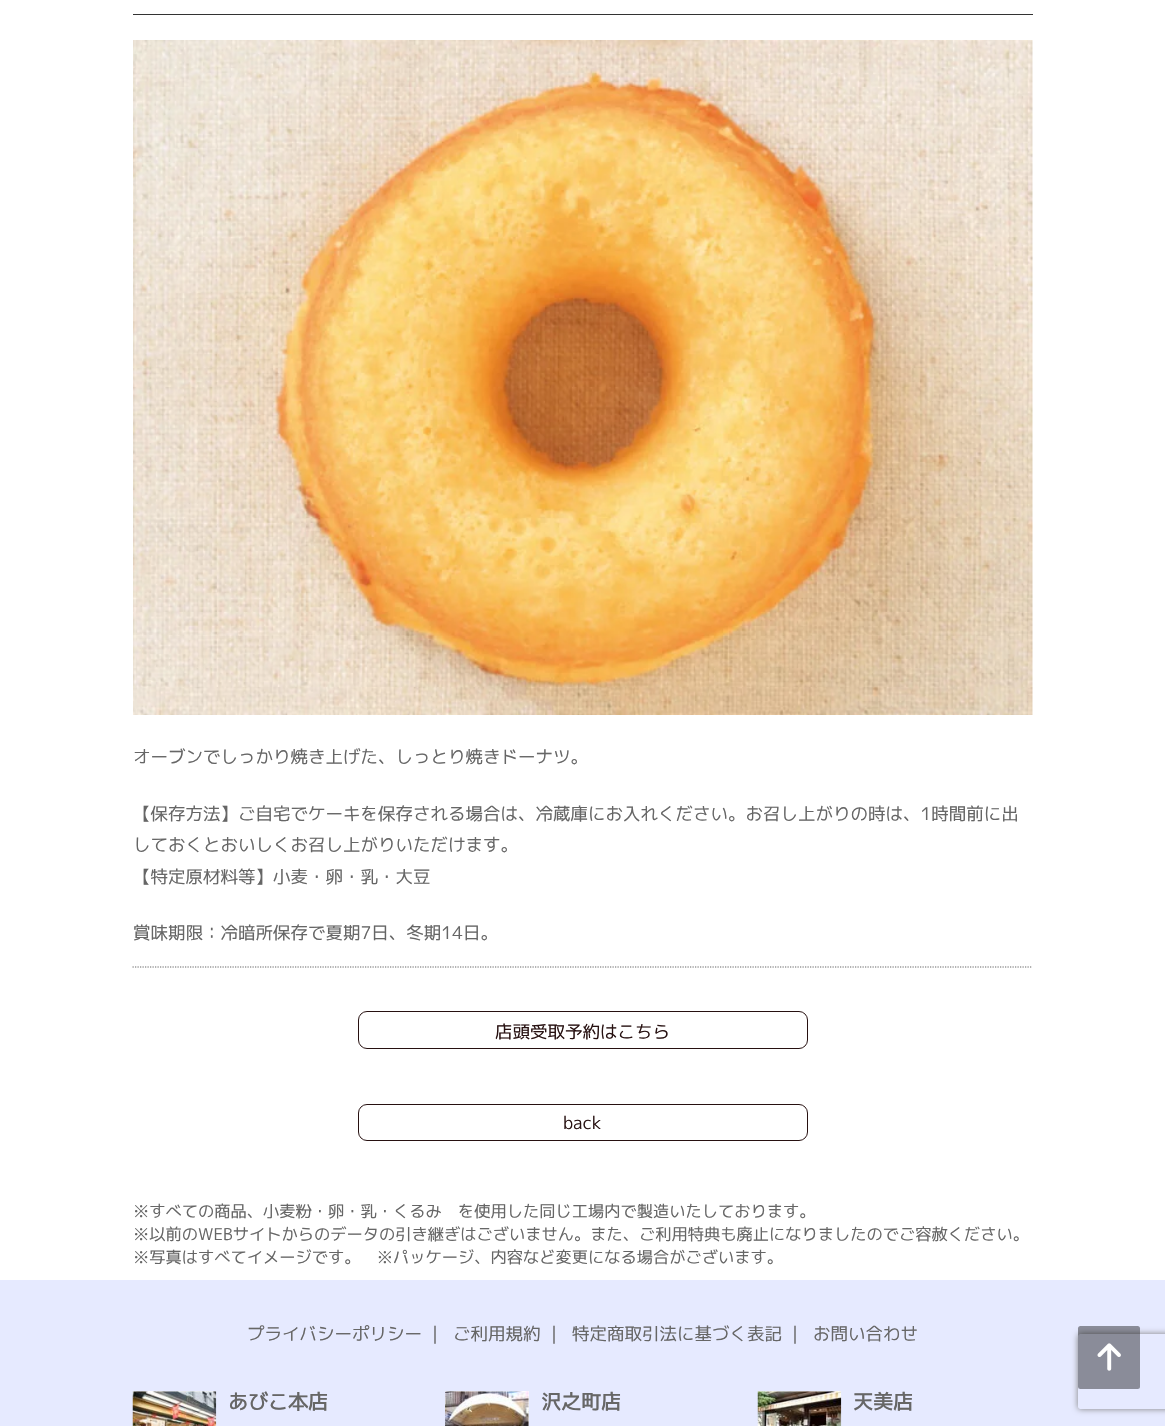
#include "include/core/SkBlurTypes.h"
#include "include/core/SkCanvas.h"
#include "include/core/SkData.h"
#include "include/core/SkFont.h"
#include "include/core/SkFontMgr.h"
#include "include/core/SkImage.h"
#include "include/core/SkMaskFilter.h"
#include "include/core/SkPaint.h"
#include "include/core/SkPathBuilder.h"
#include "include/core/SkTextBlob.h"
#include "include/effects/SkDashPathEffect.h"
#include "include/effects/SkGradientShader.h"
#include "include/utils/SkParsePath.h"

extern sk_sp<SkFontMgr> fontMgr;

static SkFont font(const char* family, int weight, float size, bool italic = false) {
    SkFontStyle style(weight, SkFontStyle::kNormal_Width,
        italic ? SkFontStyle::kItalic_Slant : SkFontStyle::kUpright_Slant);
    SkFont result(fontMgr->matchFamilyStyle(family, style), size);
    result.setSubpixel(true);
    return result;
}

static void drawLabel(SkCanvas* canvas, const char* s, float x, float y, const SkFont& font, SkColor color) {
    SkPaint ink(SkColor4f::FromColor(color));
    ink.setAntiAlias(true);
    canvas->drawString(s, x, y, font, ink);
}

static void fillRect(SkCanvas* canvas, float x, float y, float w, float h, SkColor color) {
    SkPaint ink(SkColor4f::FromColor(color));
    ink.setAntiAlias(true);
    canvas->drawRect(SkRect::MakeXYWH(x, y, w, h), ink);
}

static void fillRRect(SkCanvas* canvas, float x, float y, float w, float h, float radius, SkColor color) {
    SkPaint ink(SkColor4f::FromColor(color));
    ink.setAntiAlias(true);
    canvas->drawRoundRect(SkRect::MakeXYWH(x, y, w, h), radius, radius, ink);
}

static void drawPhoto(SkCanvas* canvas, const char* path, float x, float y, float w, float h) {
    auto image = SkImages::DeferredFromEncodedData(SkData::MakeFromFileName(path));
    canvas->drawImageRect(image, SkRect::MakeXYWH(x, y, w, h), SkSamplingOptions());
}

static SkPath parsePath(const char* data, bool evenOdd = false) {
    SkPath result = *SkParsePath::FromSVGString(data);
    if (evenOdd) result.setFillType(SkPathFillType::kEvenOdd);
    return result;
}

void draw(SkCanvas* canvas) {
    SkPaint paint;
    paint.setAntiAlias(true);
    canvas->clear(0xFFFFFFFF);
    fillRect(canvas, 133, 14, 900, 1, 0xFF333333);
    drawPhoto(canvas, "assets/img1.png", 133, 40, 900, 675);
    SkFont font1 = font("M PLUS 1p", 400, 17.5f);
    drawLabel(canvas, "オーブンでしっかり焼き上げた、しっとり焼きドーナツ。", 133, 763, font1, 0xFF666666);
    drawLabel(canvas, "【保存方法】ご自宅でケーキを保存される場合は、冷蔵庫にお入れください。お召し上がりの時は、1時間前に出", 133, 820, font1, 0xFF666666);
    drawLabel(canvas, "しておくとおいしくお召し上がりいただけます。", 133, 851, font1, 0xFF666666);
    drawLabel(canvas, "【特定原材料等】小麦・卵・乳・大豆", 133, 883, font1, 0xFF666666);
    drawLabel(canvas, "賞味期限：冷暗所保存で夏期7日、冬期14日。", 133, 939, font1, 0xFF666666);
    paint.setStroke(true);
    paint.setStrokeWidth(1.2f);
    paint.setColor(0xFF666666);
    paint.setPathEffect(SkDashPathEffect::Make({{1.25f, 1.25f}}, 0));
    canvas->drawPath(parsePath("M132.5 967H1032.5"), paint);
    paint.setPathEffect(nullptr);
    paint.setStrokeWidth(1);
    paint.setColor(0xFF271111);
    canvas->drawRoundRect(SkRect::MakeXYWH(358.5f, 1011.5f, 449, 37), 8.5f, 8.5f, paint);
    drawLabel(canvas, "店頭受取予約はこちら", 495, 1038, font1, 0xFF271111);
    canvas->drawRoundRect(SkRect::MakeXYWH(358.5f, 1104.5f, 449, 36), 8.5f, 8.5f, paint);
    drawLabel(canvas, "back", 563, 1129, font1, 0xFF271111);
    SkFont font2 = font("M PLUS 1p", 400, 16.25f);
    drawLabel(canvas, "※すべての商品、小麦粉・卵・乳・くるみ　を使用した同じ工場内で製造いたしております。", 133, 1217, font2, 0xFF666666);
    drawLabel(canvas, "※以前のWEBサイトからのデータの引き継ぎはございません。また、ご利用特典も廃止になりましたのでご容赦ください。", 133, 1240, font2, 0xFF666666);
    drawLabel(canvas, "※写真はすべてイメージです。　※パッケージ、内容など変更になる場合がございます。", 133, 1263, font2, 0xFF666666);
    fillRect(canvas, 0, 1280, 1165, 146, 0xFFE6EAFF);
    drawLabel(canvas, "プライバシーポリシー", 247, 1340, font1, 0xFF666666);
    drawLabel(canvas, "|", 432, 1340, font1, 0xFF666666);
    drawLabel(canvas, "ご利用規約", 453, 1340, font1, 0xFF666666);
    drawLabel(canvas, "|", 551, 1340, font1, 0xFF666666);
    drawLabel(canvas, "特定商取引法に基づく表記", 572, 1340, font1, 0xFF666666);
    drawLabel(canvas, "|", 792, 1340, font1, 0xFF666666);
    drawLabel(canvas, "お問い合わせ", 813, 1340, font1, 0xFF666666);
    fillRect(canvas, 133, 1391, 83, 1, 0xFFFFFFFF);
    drawPhoto(canvas, "assets/img2.png", 132, 1391, 85, 35);
    SkFont font3 = font("M PLUS 1p", 700, 20);
    drawLabel(canvas, "あびこ本店", 228, 1409, font3, 0xFF666666);
    fillRect(canvas, 445, 1391, 84, 35, 0xFFFFFFFF);
    drawPhoto(canvas, "assets/img3.png", 445, 1391, 84, 35);
    drawLabel(canvas, "沢之町店", 541, 1409, font3, 0xFF666666);
    fillRect(canvas, 758, 1391, 83, 1, 0xFFFFFFFF);
    drawPhoto(canvas, "assets/img4.png", 757, 1391, 85, 35);
    drawLabel(canvas, "天美店", 853, 1409, font3, 0xFF666666);
    canvas->save();
    canvas->clipPath(parsePath("M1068 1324H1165V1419H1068ZM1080.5 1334H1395.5C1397 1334 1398 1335 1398 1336.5V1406.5C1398 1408 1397 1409 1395.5 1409H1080.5C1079 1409 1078 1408 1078 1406.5V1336.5C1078 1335 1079 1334 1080.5 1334Z", true), true);
    paint.setStroke(false);
    paint.setColor(0xFF808080);
    paint.setMaskFilter(SkMaskFilter::MakeBlur(kNormal_SkBlurStyle, 3));
    canvas->drawRoundRect(SkRect::MakeXYWH(1078, 1334, 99, 75), 2.5f, 2.5f, paint);
    paint.setMaskFilter(nullptr);
    canvas->restore();
    fillRRect(canvas, 1078, 1326, 62, 63, 2.5f, 0x66000000);
    drawPhoto(canvas, "assets/img5.png", 1097, 1343, 24, 28);
}
